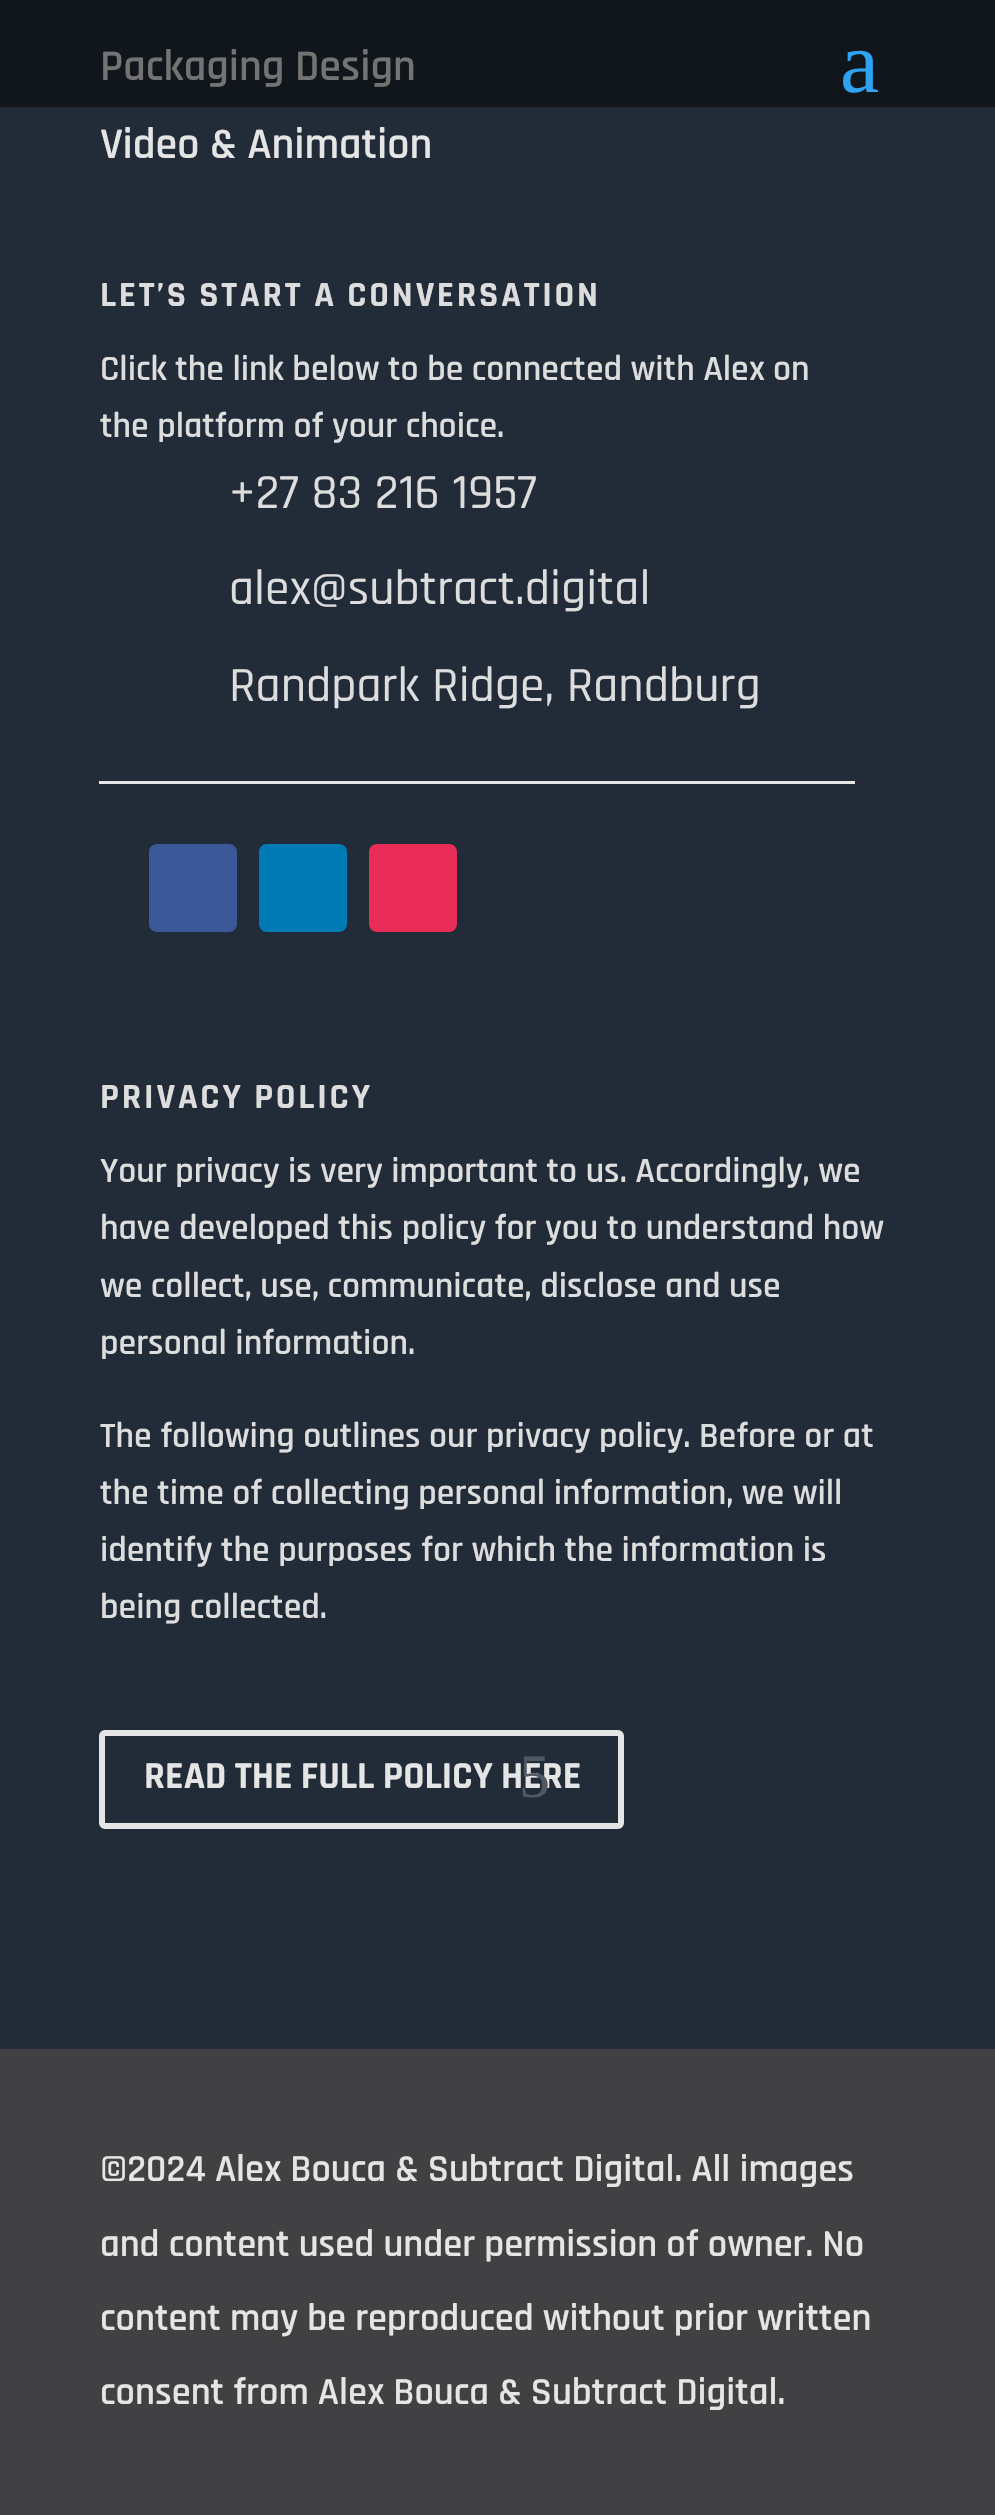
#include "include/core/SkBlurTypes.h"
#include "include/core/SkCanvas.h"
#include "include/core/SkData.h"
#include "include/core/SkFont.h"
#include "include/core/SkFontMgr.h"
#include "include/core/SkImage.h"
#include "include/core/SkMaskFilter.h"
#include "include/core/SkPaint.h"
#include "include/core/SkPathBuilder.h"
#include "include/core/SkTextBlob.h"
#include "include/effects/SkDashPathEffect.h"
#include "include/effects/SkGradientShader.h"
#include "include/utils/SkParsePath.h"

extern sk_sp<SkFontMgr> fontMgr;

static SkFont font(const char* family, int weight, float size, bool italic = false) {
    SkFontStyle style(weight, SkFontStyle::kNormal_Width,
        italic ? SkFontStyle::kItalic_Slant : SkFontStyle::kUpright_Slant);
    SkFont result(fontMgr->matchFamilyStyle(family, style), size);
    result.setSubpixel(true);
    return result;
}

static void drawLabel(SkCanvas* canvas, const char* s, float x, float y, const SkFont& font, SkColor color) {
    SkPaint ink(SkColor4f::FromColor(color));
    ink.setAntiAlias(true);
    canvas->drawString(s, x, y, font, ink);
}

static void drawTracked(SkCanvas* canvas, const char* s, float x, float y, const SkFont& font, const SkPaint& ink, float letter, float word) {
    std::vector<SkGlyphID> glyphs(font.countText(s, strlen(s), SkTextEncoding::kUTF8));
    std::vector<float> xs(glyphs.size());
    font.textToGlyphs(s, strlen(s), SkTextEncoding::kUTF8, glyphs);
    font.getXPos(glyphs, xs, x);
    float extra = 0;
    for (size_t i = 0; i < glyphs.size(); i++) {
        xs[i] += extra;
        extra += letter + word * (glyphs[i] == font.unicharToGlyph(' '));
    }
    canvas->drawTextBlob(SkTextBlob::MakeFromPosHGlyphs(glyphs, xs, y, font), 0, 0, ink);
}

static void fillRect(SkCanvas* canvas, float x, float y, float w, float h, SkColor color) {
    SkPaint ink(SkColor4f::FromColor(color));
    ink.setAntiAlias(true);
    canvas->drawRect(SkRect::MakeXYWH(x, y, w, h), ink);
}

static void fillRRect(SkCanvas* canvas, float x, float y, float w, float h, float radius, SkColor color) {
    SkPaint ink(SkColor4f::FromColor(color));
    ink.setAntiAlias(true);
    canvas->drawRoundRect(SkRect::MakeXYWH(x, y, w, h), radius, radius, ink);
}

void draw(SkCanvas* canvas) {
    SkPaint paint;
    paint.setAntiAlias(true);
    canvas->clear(0xFF414042);
    fillRect(canvas, 0, 107, 995, 1942, 0xFF212C38);
    fillRect(canvas, 0, 0, 995, 107, 0xFF11161C);
    SkFont font1 = font("Rajdhani", 600, 44);
    drawLabel(canvas, "Packaging Design", 100, 80, font1, 0xFF737373);
    drawLabel(canvas, "Video & Animation", 100, 158, font1, 0xFFE5E5E5);
    SkFont font2 = font("Rajdhani", 700, 35.75f);
    paint.setColor(0xFFDDDDDD);
    drawTracked(canvas, "LET’S START A CONVERSATION", 100, 306, font2, paint, 2.75f, 0);
    SkFont font3 = font("Rajdhani", 600, 35.75f);
    drawLabel(canvas, "Click the link below to be connected with Alex on", 100, 380, font3, 0xFFDDDDDD);
    drawLabel(canvas, "the platform of your choice.", 100, 437, font3, 0xFFDDDDDD);
    SkFont font4 = font("Rajdhani", 500, 49.5f);
    drawLabel(canvas, "+27 83 216 1957", 229, 508, font4, 0xFFDDDDDD);
    drawLabel(canvas, "alex@subtract.digital", 229, 604, font4, 0xFFDDDDDD);
    drawLabel(canvas, "Randpark Ridge, Randburg", 229, 701, font4, 0xFFDDDDDD);
    fillRect(canvas, 99, 781, 756, 3, 0xFFE5E5E5);
    fillRRect(canvas, 149, 844, 88, 88, 8, 0xFF3B5998);
    fillRRect(canvas, 259, 844, 88, 88, 8, 0xFF007BB6);
    fillRRect(canvas, 369, 844, 88, 88, 8, 0xFFEA2C59);
    drawTracked(canvas, "PRIVACY POLICY", 100, 1108, font2, paint, 2.75f, 0);
    drawLabel(canvas, "Your privacy is very important to us. Accordingly, we", 100, 1182, font3, 0xFFDDDDDD);
    drawLabel(canvas, "have developed this policy for you to understand how", 100, 1239, font3, 0xFFDDDDDD);
    drawLabel(canvas, "we collect, use, communicate, disclose and use", 100, 1297, font3, 0xFFDDDDDD);
    drawLabel(canvas, "personal information.", 100, 1354, font3, 0xFFDDDDDD);
    drawLabel(canvas, "The following outlines our privacy policy. Before or at", 100, 1447, font3, 0xFFDDDDDD);
    drawLabel(canvas, "the time of collecting personal information, we will", 100, 1504, font3, 0xFFDDDDDD);
    drawLabel(canvas, "identify the purposes for which the information is", 100, 1561, font3, 0xFFDDDDDD);
    drawLabel(canvas, "being collected.", 100, 1618, font3, 0xFFDDDDDD);
    paint.setStroke(true);
    paint.setStrokeWidth(6);
    paint.setColor(0xFFE5E5E5);
    canvas->drawRoundRect(SkRect::MakeXYWH(102, 1733, 519, 93), 3, 3, paint);
    SkFont font5 = font("Rajdhani", 700, 38.5f);
    drawLabel(canvas, "READ THE FULL POLICY HERE", 144, 1788, font5, 0xFFE5E5E5);
    SkFont font6 = font("Liberation Serif", 400, 62);
    drawLabel(canvas, "5", 519, 1797, font6, 0xFF505861);
    SkFont font7 = font("Rajdhani", 600, 38.5f);
    drawLabel(canvas, "©2024 Alex Bouca & Subtract Digital. All images", 100, 2181, font7, 0xFFE5E5E5);
    drawLabel(canvas, "and content used under permission of owner. No", 100, 2256, font7, 0xFFE5E5E5);
    drawLabel(canvas, "content may be reproduced without prior written", 100, 2330, font7, 0xFFE5E5E5);
    drawLabel(canvas, "consent from Alex Bouca & Subtract Digital.", 100, 2404, font7, 0xFFE5E5E5);
    SkFont font8 = font("Liberation Serif", 400, 88);
    drawLabel(canvas, "a", 840, 92, font8, 0xFF2EA3F2);
}
